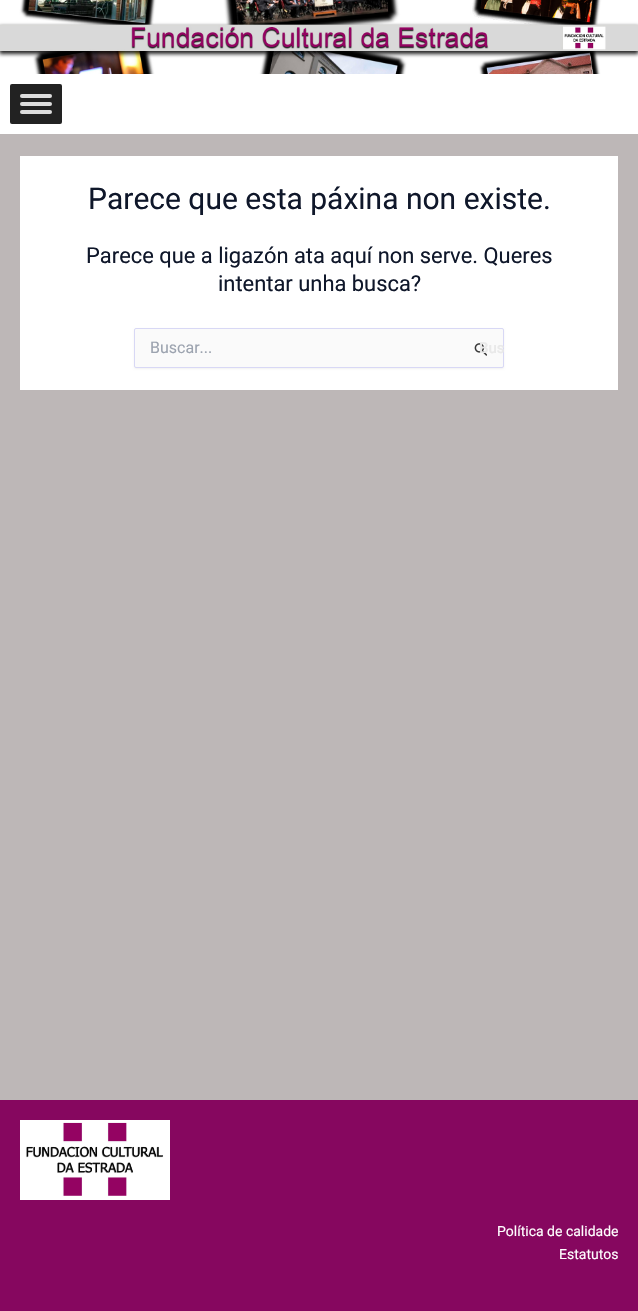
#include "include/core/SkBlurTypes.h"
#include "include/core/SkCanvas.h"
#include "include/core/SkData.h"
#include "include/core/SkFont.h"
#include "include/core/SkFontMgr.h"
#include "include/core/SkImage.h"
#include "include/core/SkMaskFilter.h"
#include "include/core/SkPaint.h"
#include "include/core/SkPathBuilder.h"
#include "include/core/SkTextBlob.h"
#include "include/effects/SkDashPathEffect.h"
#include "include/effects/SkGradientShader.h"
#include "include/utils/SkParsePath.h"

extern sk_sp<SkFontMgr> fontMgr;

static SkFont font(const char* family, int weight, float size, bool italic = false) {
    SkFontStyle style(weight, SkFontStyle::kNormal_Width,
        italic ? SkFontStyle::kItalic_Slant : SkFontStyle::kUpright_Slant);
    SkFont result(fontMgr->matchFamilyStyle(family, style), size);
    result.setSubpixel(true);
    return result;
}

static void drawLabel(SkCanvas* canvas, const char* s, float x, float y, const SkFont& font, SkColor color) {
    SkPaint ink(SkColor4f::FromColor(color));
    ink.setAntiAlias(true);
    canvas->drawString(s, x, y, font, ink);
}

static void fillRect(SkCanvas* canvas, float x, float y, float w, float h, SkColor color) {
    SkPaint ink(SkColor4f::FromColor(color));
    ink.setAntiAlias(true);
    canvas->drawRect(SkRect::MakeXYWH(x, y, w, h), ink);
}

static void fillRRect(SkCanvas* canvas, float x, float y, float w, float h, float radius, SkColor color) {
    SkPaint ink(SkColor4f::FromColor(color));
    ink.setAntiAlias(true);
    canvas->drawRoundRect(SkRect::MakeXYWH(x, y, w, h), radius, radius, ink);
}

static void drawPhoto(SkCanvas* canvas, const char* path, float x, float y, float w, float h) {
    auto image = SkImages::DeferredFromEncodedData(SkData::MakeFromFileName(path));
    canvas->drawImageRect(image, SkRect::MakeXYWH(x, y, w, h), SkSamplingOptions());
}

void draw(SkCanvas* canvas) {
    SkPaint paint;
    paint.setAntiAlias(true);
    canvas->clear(0xFFBDB7B7);
    drawPhoto(canvas, "assets/img1.png", 0, 0, 638, 74);
    fillRect(canvas, 0, 74, 638, 60, 0xFFFFFFFF);
    fillRRect(canvas, 10, 84, 52, 40, 2, 0xFF222222);
    fillRRect(canvas, 20, 94, 32, 4, 2, 0xFFDDDDDD);
    fillRRect(canvas, 20, 102, 32, 4, 2, 0xFFDDDDDD);
    fillRRect(canvas, 20, 110, 32, 4, 2, 0xFFDDDDDD);
    fillRect(canvas, 20, 156, 598, 234, 0xFFFFFFFF);
    SkFont font1 = font("Roboto", 400, 30);
    drawLabel(canvas, "Parece que esta páxina non existe.", 88, 209, font1, 0xFF0F172A);
    SkFont font2 = font("Roboto", 400, 21.9f);
    drawLabel(canvas, "Parece que a ligazón ata aquí non serve. Queres", 86, 263, font2, 0xFF0F172A);
    drawLabel(canvas, "intentar unha busca?", 218, 291, font2, 0xFF0F172A);
    paint.setColor(0x0D000000);
    paint.setMaskFilter(SkMaskFilter::MakeBlur(kNormal_SkBlurStyle, 1));
    canvas->drawRoundRect(SkRect::MakeXYWH(134, 329, 370, 40), 2, 2, paint);
    paint.setMaskFilter(nullptr);
    paint.setColor(0xFFFAFAFA);
    canvas->drawRoundRect(SkRect::MakeXYWH(134.5f, 328.5f, 369, 39), 1.5f, 1.5f, paint);
    paint.setStroke(true);
    paint.setStrokeWidth(1);
    paint.setColor(0xFFD8D8F5);
    canvas->drawRoundRect(SkRect::MakeXYWH(134.5f, 328.5f, 369, 39), 1.5f, 1.5f, paint);
    SkFont font3 = font("Roboto", 400, 16);
    drawLabel(canvas, "Buscar...", 150, 353, font3, 0xFF9CA3AF);
    drawPhoto(canvas, "assets/img2.png", 474, 343, 13, 13);
    SkFont font4 = font("Roboto", 500, 15);
    drawLabel(canvas, "Bus", 479, 353, font4, 0xFFE9E9E9);
    fillRect(canvas, 0, 1100, 638, 211, 0xFF86075F);
    drawPhoto(canvas, "assets/img3.png", 20, 1120, 150, 80);
    SkFont font5 = font("Roboto", 400, 14);
    drawLabel(canvas, "Política de calidade", 497, 1236, font5, 0xFFFFFFFF);
    drawLabel(canvas, "Estatutos", 559, 1259, font5, 0xFFFFFFFF);
}
